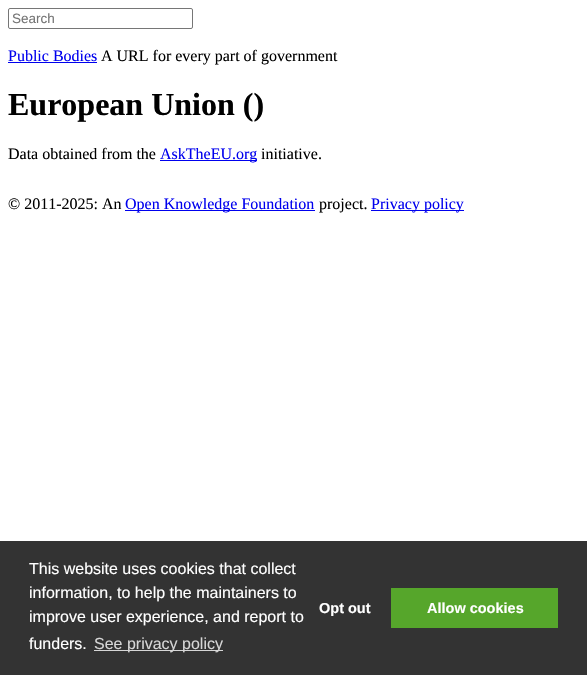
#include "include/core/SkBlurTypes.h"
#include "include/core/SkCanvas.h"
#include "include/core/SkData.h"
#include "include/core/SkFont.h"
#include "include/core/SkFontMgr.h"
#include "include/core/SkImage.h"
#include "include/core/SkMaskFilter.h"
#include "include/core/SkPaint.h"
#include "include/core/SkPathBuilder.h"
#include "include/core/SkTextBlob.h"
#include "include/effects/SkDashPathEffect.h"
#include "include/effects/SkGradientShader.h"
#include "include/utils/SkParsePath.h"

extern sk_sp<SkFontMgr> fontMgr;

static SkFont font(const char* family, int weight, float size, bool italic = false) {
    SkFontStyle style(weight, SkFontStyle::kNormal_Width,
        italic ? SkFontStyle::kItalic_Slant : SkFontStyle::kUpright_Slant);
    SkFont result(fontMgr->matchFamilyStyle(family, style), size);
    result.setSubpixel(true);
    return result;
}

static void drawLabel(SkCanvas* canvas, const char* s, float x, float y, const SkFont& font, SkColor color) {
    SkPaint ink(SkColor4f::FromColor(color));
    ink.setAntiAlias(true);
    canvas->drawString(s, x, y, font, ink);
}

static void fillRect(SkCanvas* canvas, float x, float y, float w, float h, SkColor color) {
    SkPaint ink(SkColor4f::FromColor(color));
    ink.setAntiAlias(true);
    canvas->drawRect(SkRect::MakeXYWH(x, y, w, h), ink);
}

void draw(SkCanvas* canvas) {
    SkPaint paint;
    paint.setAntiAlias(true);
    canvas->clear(0xFFFFFFFF);
    paint.setStroke(true);
    paint.setStrokeWidth(1);
    paint.setColor(0xFF767676);
    canvas->drawRoundRect(SkRect::MakeXYWH(8.5f, 8.5f, 184, 20), 1.5f, 1.5f, paint);
    SkFont font1 = font("Liberation Sans", 400, 13.5f);
    drawLabel(canvas, "Search", 12, 23, font1, 0xFF757575);
    SkFont font2 = font("Liberation Serif", 400, 16);
    drawLabel(canvas, "Public Bodies", 8, 61, font2, 0xFF0000EE);
    fillRect(canvas, 8, 62, 89, 1, 0xFF0000EE);
    drawLabel(canvas, "A URL for every part of government", 101, 61, font2, 0xFF000000);
    SkFont font3 = font("Liberation Serif", 700, 32);
    drawLabel(canvas, "European Union ()", 8, 115, font3, 0xFF000000);
    drawLabel(canvas, "Data obtained from the", 8, 159, font2, 0xFF000000);
    fillRect(canvas, 160, 160, 97, 1, 0xFF0000EE);
    drawLabel(canvas, "AskTheEU.org", 160, 159, font2, 0xFF0000EE);
    drawLabel(canvas, "initiative.", 261, 159, font2, 0xFF000000);
    drawLabel(canvas, "© 2011-2025: An", 8, 209, font2, 0xFF000000);
    fillRect(canvas, 125, 210, 190, 1, 0xFF0000EE);
    drawLabel(canvas, "Open Knowledge Foundation", 125, 209, font2, 0xFF0000EE);
    drawLabel(canvas, "project.", 319, 209, font2, 0xFF000000);
    fillRect(canvas, 371, 210, 93, 1, 0xFF0000EE);
    drawLabel(canvas, "Privacy policy", 371, 209, font2, 0xFF0000EE);
    fillRect(canvas, 0, 541, 587, 134, 0xFF333333);
    SkFont font4 = font("Liberation Sans", 400, 16);
    drawLabel(canvas, "This website uses cookies that collect", 29, 574, font4, 0xFFFFFFFF);
    drawLabel(canvas, "information, to help the maintainers to", 29, 598, font4, 0xFFFFFFFF);
    drawLabel(canvas, "improve user experience, and report to", 29, 622, font4, 0xFFFFFFFF);
    drawLabel(canvas, "funders.", 29, 649, font4, 0xFFFFFFFF);
    fillRect(canvas, 94, 650, 129, 1, 0xFFD6D6D6);
    drawLabel(canvas, "See privacy policy", 94, 649, font4, 0xFFD6D6D6);
    SkFont font5 = font("Liberation Sans", 700, 14.5f);
    drawLabel(canvas, "Opt out", 319, 613, font5, 0xFFFFFFFF);
    fillRect(canvas, 391, 588, 167, 40, 0xFF56A62B);
    drawLabel(canvas, "Allow cookies", 427, 613, font5, 0xFFFFFFFF);
}
